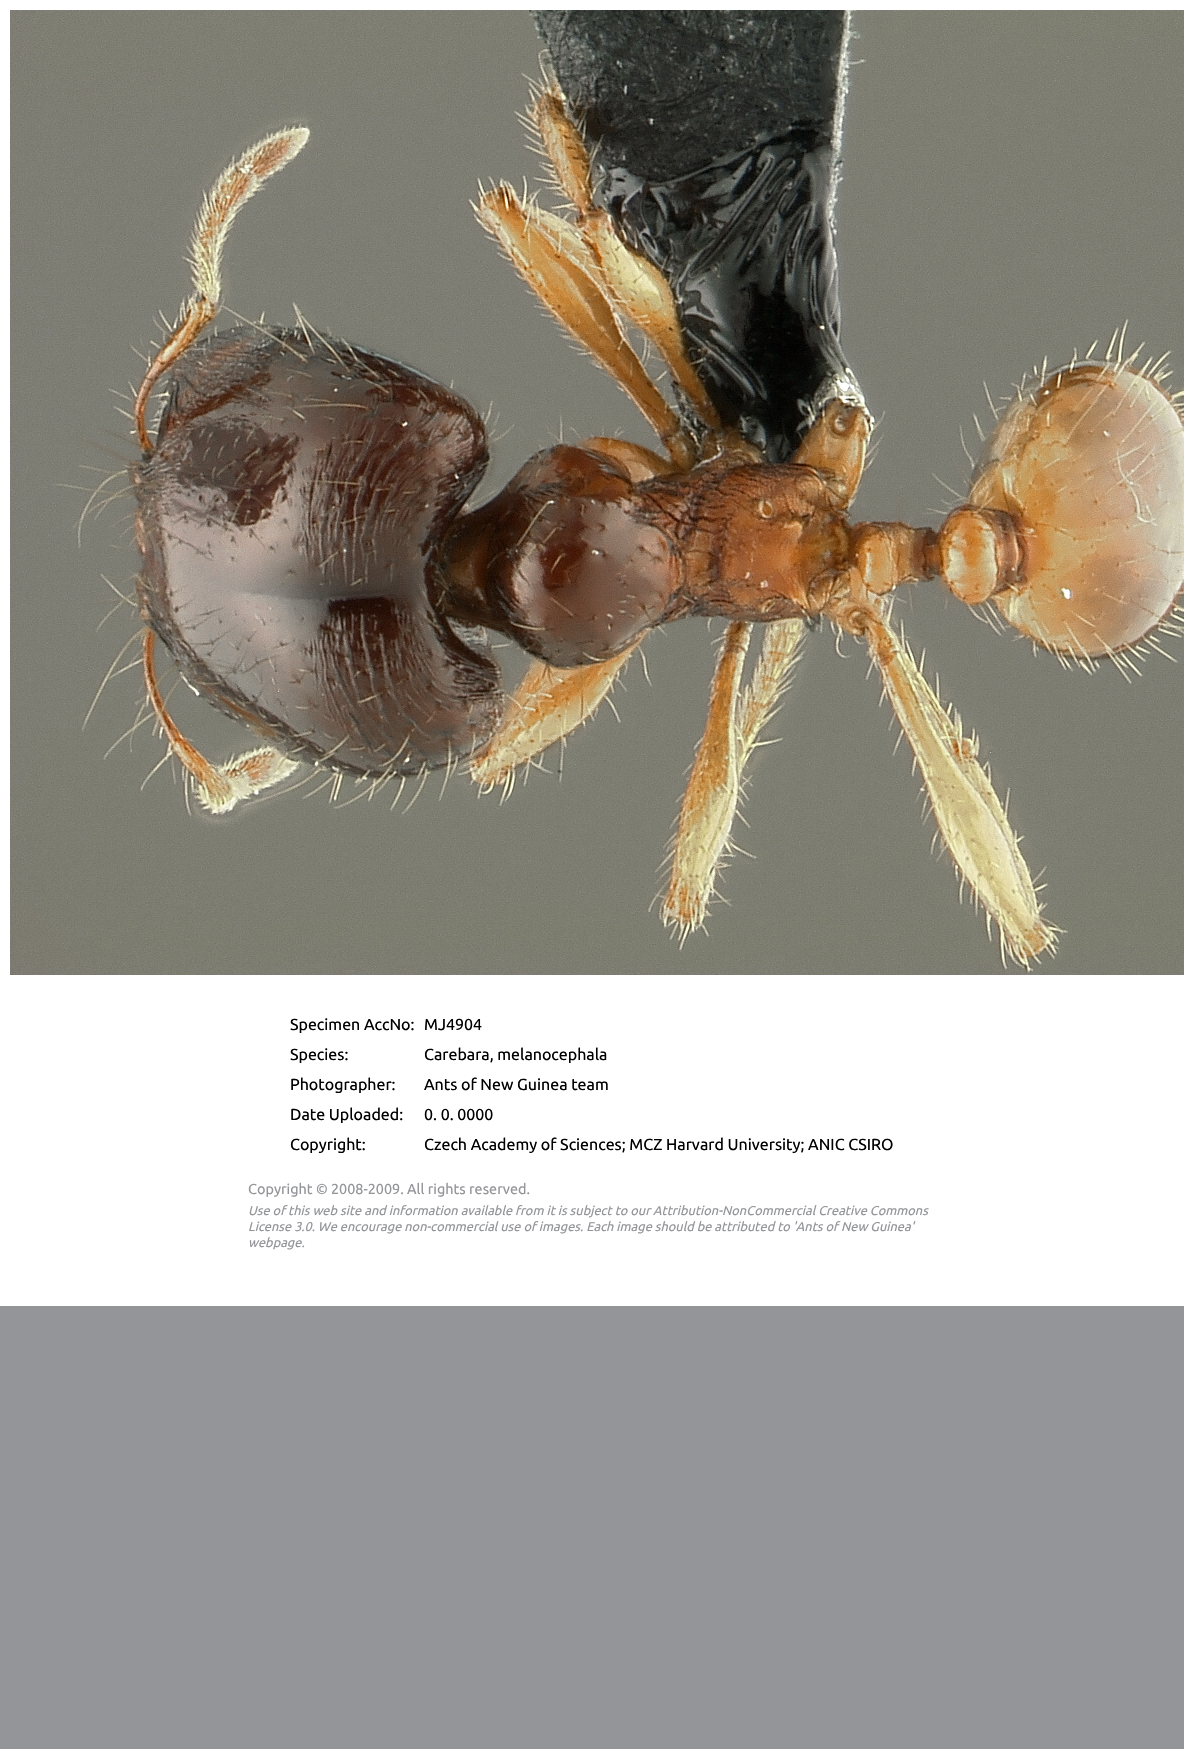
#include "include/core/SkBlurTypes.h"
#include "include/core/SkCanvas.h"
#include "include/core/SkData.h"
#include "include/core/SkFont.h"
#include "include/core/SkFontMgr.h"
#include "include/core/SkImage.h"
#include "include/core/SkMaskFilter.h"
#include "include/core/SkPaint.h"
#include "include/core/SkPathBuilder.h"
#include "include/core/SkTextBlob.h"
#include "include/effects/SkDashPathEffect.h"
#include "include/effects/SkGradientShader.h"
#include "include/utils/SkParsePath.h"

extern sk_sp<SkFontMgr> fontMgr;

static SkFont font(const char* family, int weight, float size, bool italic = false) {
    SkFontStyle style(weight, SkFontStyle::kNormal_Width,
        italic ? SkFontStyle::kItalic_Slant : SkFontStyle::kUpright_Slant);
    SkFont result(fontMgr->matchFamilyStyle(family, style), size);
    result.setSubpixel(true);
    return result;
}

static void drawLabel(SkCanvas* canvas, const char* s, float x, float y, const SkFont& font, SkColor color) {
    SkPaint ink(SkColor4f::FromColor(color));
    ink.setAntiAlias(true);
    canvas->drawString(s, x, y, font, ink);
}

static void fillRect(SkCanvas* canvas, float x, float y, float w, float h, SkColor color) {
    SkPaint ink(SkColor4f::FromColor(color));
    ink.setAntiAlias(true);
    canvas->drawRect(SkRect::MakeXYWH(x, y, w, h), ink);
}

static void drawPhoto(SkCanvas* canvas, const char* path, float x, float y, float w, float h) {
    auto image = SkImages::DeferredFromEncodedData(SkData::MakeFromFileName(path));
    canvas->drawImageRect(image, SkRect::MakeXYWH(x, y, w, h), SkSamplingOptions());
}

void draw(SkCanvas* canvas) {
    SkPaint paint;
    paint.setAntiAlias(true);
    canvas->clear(0xFF949599);
    fillRect(canvas, 0, 0, 1184, 1306, 0xFFFFFFFF);
    drawPhoto(canvas, "assets/img1.png", 10, 10, 1174, 965);
    SkFont font1 = font("Ubuntu", 400, 16);
    drawLabel(canvas, "Specimen AccNo:", 290, 1030, font1, 0xFF000000);
    drawLabel(canvas, "MJ4904", 424, 1030, font1, 0xFF000000);
    drawLabel(canvas, "Species:", 290, 1060, font1, 0xFF000000);
    drawLabel(canvas, "Carebara, melanocephala", 424, 1060, font1, 0xFF000000);
    drawLabel(canvas, "Photographer:", 290, 1090, font1, 0xFF000000);
    drawLabel(canvas, "Ants of New Guinea team", 424, 1090, font1, 0xFF000000);
    drawLabel(canvas, "Date Uploaded:", 290, 1120, font1, 0xFF000000);
    drawLabel(canvas, "0. 0. 0000", 424, 1120, font1, 0xFF000000);
    drawLabel(canvas, "Copyright:", 290, 1150, font1, 0xFF000000);
    drawLabel(canvas, "Czech Academy of Sciences; MCZ Harvard University; ANIC CSIRO", 424, 1150, font1, 0xFF000000);
    SkFont font2 = font("Ubuntu", 400, 14.4f);
    drawLabel(canvas, "Copyright © 2008-2009. All rights reserved.", 248, 1194, font2, 0xFF949599);
    SkFont font3 = font("Ubuntu", 400, 12.8f, true);
    drawLabel(canvas, "Use of this web site and information available from it is subject to our Attribution-NonCommercial Creative Commons", 248, 1215, font3, 0xFF949599);
    drawLabel(canvas, "License 3.0. We encourage non-commercial use of images. Each image should be attributed to 'Ants of New Guinea'", 248, 1231, font3, 0xFF949599);
    drawLabel(canvas, "webpage.", 248, 1247, font3, 0xFF949599);
}
